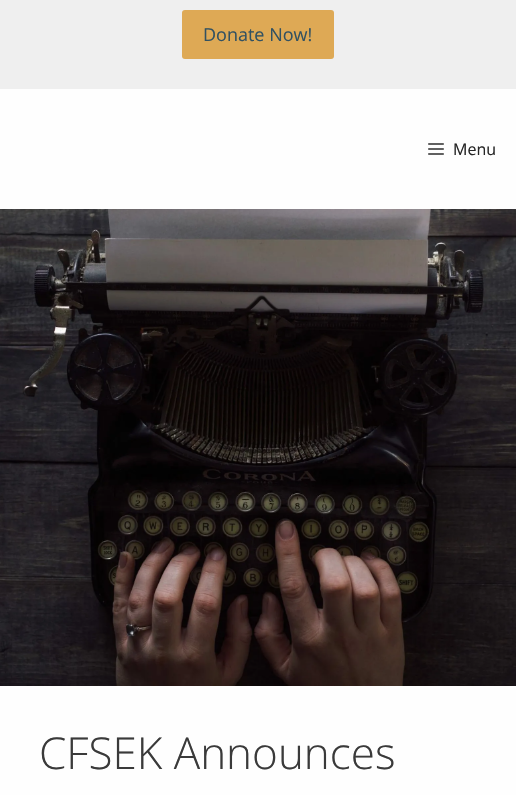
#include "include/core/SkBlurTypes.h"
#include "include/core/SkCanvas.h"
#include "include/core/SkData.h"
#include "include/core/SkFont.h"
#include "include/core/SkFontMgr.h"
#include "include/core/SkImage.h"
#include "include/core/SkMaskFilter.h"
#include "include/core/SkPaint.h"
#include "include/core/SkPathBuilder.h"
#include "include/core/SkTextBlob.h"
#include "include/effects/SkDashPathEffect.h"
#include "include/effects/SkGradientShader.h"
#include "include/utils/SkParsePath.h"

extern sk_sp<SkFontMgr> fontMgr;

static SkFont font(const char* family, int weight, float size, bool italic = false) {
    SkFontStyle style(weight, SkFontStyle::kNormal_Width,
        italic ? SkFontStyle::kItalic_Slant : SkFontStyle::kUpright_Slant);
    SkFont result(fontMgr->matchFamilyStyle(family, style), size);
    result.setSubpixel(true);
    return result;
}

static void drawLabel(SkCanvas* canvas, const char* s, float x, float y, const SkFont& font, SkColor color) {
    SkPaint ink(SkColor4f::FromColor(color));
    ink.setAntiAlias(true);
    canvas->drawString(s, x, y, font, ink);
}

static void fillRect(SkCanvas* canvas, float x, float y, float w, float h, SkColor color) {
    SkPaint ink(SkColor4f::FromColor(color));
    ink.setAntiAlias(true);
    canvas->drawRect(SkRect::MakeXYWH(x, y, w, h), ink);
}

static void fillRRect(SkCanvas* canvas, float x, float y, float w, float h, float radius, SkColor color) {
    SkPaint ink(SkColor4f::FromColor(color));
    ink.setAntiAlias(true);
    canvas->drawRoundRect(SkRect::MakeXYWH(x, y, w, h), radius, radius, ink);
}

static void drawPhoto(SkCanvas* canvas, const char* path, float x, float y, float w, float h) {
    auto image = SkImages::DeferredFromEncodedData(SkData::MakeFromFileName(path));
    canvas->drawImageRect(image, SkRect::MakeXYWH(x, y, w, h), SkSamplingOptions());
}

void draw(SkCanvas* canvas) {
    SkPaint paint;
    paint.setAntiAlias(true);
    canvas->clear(0xFFEFEFEF);
    fillRRect(canvas, 182, 10, 152, 49, 3, 0xFFDEA955);
    SkFont font1 = font("Open Sans", 400, 18);
    drawLabel(canvas, "Donate Now!", 203, 41, font1, 0xFF325161);
    fillRect(canvas, 0, 89, 516, 120, 0xFFFEFEFE);
    drawPhoto(canvas, "assets/img1.png", 428, 143, 16, 12);
    SkFont font2 = font("Open Sans", 400, 16);
    drawLabel(canvas, "Menu", 453, 155, font2, 0xFF262626);
    drawPhoto(canvas, "assets/img2.png", 0, 209, 516, 477);
    fillRect(canvas, 0, 686, 516, 109, 0xFFFEFEFE);
    SkFont font3 = font("Open Sans", 300, 44);
    drawLabel(canvas, "CFSEK Announces", 39, 769, font3, 0xFF3A3A3A);
}
